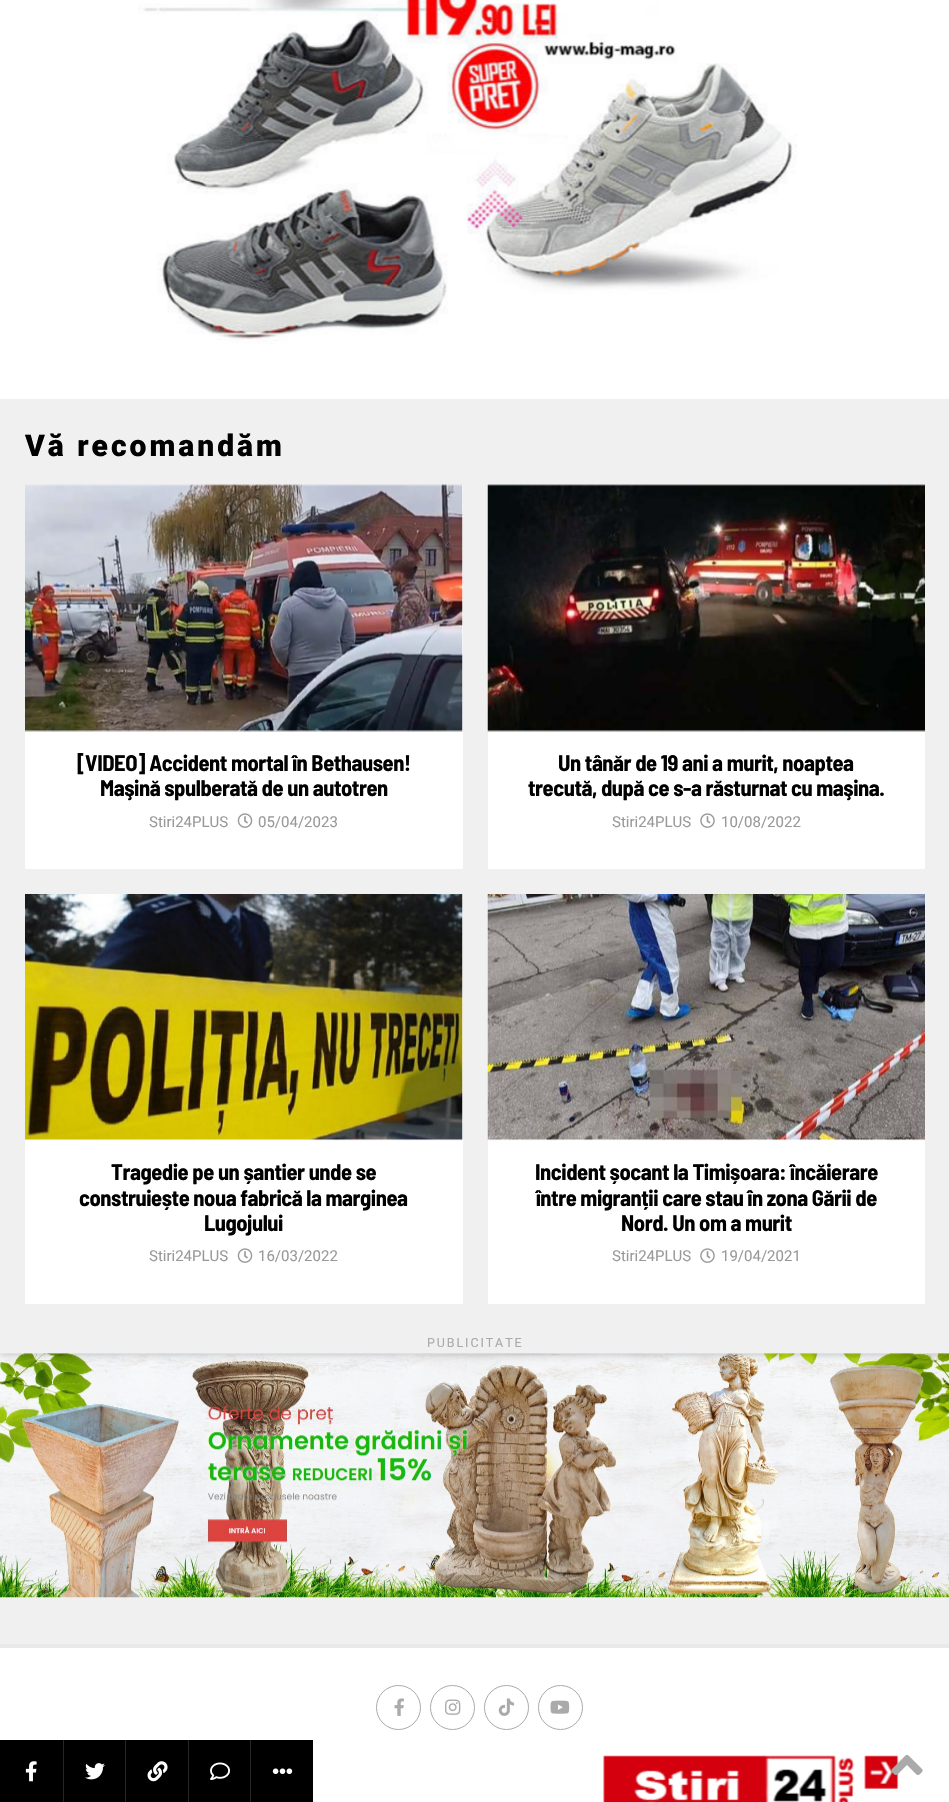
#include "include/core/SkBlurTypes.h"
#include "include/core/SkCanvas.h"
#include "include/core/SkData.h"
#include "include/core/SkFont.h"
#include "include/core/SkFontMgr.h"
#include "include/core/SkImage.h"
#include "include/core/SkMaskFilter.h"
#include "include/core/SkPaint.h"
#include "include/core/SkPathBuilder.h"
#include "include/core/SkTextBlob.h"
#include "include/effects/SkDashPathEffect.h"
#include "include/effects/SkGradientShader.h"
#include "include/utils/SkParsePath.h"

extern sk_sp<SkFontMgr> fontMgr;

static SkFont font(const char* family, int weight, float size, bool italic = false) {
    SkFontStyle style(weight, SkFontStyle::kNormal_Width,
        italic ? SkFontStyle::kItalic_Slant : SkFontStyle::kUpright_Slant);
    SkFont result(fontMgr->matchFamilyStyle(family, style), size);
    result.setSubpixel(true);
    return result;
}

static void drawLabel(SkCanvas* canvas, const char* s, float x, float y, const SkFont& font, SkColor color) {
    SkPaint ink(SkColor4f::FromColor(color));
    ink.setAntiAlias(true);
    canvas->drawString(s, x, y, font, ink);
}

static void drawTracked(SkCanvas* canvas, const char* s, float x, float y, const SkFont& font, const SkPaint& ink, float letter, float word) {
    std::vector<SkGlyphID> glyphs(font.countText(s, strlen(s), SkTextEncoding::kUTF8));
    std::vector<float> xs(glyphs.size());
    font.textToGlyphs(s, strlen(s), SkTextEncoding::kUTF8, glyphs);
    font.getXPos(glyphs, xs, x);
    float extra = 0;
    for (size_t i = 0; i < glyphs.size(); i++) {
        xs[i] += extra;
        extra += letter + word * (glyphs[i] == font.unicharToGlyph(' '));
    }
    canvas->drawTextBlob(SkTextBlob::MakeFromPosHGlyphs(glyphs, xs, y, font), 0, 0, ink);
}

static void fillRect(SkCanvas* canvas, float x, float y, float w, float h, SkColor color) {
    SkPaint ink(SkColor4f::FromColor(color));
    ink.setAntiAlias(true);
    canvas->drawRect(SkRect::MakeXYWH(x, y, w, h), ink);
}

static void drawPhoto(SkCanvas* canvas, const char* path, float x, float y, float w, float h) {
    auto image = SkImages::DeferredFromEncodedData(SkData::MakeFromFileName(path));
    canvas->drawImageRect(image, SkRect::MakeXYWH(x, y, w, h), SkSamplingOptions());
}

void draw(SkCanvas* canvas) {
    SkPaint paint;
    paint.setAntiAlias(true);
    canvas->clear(0xFFF0F0F0);
    fillRect(canvas, 0, 0, 949, 399, 0xFFFFFFFF);
    drawPhoto(canvas, "assets/img1.png", 138, 0, 659, 344);
    fillRect(canvas, 0, 1648, 949, 154, 0xFFFFFFFF);
    fillRect(canvas, 0, 1740, 63, 62, 0xFF000000);
    drawPhoto(canvas, "assets/img2.png", 25, 1761, 12, 21);
    fillRect(canvas, 64, 1740, 61, 62, 0xFF000000);
    fillRect(canvas, 63, 1740, 1, 62, 0xFF262626);
    drawPhoto(canvas, "assets/img3.png", 85, 1763, 20, 17);
    fillRect(canvas, 126, 1740, 62, 62, 0xFF000000);
    fillRect(canvas, 125, 1740, 1, 62, 0xFF262626);
    drawPhoto(canvas, "assets/img4.png", 147, 1761, 21, 21);
    fillRect(canvas, 189, 1740, 61, 62, 0xFF000000);
    fillRect(canvas, 188, 1740, 1, 62, 0xFF262626);
    drawPhoto(canvas, "assets/img5.png", 210, 1762, 20, 18);
    fillRect(canvas, 251, 1740, 62, 62, 0xFF000000);
    fillRect(canvas, 250, 1740, 1, 62, 0xFF262626);
    drawPhoto(canvas, "assets/img6.png", 272, 1768, 21, 6);
    SkFont font1 = font("Roboto", 900, 30);
    paint.setColor(0xFF000000);
    drawTracked(canvas, "Vă recomandăm", 25, 456, font1, paint, 3, 0);
    fillRect(canvas, 25, 485, 438, 384, 0xFFFFFFFF);
    drawPhoto(canvas, "assets/img7.png", 25, 484, 438, 248);
    SkFont font2 = font("Barlow Semi Condensed", 700, 22.5f);
    drawTracked(canvas, "[VIDEO] Accident mortal în Bethausen!", 77, 771, font2, paint, -0.45f, 0);
    drawTracked(canvas, "Maşină spulberată de un autotren", 100, 796, font2, paint, -0.45f, 0);
    SkFont font3 = font("Roboto", 400, 15);
    drawLabel(canvas, "Stiri24PLUS", 149, 827, font3, 0xFF999999);
    drawPhoto(canvas, "assets/img8.png", 237, 813, 16, 15);
    drawLabel(canvas, "05/04/2023", 258, 827, font3, 0xFF999999);
    fillRect(canvas, 488, 485, 437, 384, 0xFFFFFFFF);
    drawPhoto(canvas, "assets/img9.png", 487, 484, 438, 248);
    drawTracked(canvas, "Un tânăr de 19 ani a murit, noaptea", 558, 771, font2, paint, -0.45f, 0);
    drawTracked(canvas, "trecută, după ce s-a răsturnat cu maşina.", 528, 796, font2, paint, -0.45f, 0);
    drawLabel(canvas, "Stiri24PLUS", 612, 827, font3, 0xFF999999);
    drawPhoto(canvas, "assets/img10.png", 700, 813, 15, 15);
    drawLabel(canvas, "10/08/2022", 721, 827, font3, 0xFF999999);
    fillRect(canvas, 25, 894, 438, 410, 0xFFFFFFFF);
    drawPhoto(canvas, "assets/img11.png", 25, 894, 438, 247);
    drawTracked(canvas, "Tragedie pe un șantier unde se", 111, 1180, font2, paint, -0.45f, 0);
    drawTracked(canvas, "construiește noua fabrică la marginea", 79, 1206, font2, paint, -0.45f, 0);
    drawTracked(canvas, "Lugojului", 204, 1231, font2, paint, -0.45f, 0);
    drawLabel(canvas, "Stiri24PLUS", 149, 1261, font3, 0xFF999999);
    drawPhoto(canvas, "assets/img8.png", 237, 1248, 16, 15);
    drawLabel(canvas, "16/03/2022", 258, 1261, font3, 0xFF999999);
    fillRect(canvas, 488, 1139, 437, 165, 0xFFFFFFFF);
    drawPhoto(canvas, "assets/img12.png", 487, 894, 438, 247);
    drawTracked(canvas, "Incident șocant la Timișoara: încăierare", 535, 1180, font2, paint, -0.45f, 0);
    drawTracked(canvas, "între migranții care stau în zona Gării de", 536, 1206, font2, paint, -0.45f, 0);
    drawTracked(canvas, "Nord. Un om a murit", 621, 1231, font2, paint, -0.45f, 0);
    drawLabel(canvas, "Stiri24PLUS", 612, 1261, font3, 0xFF999999);
    drawPhoto(canvas, "assets/img10.png", 700, 1248, 15, 15);
    drawLabel(canvas, "19/04/2021", 721, 1261, font3, 0xFF999999);
    SkFont font4 = font("Roboto", 400, 12.5f);
    paint.setColor(0xFFAAAAAA);
    drawTracked(canvas, "PUBLICITATE", 427, 1347, font4, paint, 1.9f, 0);
    drawPhoto(canvas, "assets/img13.png", 0, 1353, 949, 245);
    fillRect(canvas, 0, 1644, 949, 4, 0xFFE9E9E9);
    paint.setStroke(true);
    paint.setStrokeWidth(1);
    canvas->drawCircle(398.5f, 1707.5f, 22, paint);
    drawPhoto(canvas, "assets/img14.png", 394, 1698, 10, 18);
    canvas->drawCircle(452.5f, 1707.5f, 22, paint);
    drawPhoto(canvas, "assets/img15.png", 445, 1699, 16, 16);
    canvas->drawCircle(506.5f, 1707.5f, 22, paint);
    drawPhoto(canvas, "assets/img16.png", 498, 1698, 17, 18);
    canvas->drawCircle(560.5f, 1707.5f, 22, paint);
    drawPhoto(canvas, "assets/img17.png", 550, 1700, 20, 14);
    drawPhoto(canvas, "assets/img18.png", 603, 1755, 296, 47);
    drawPhoto(canvas, "assets/img19.png", 891, 1755, 32, 20);
}
